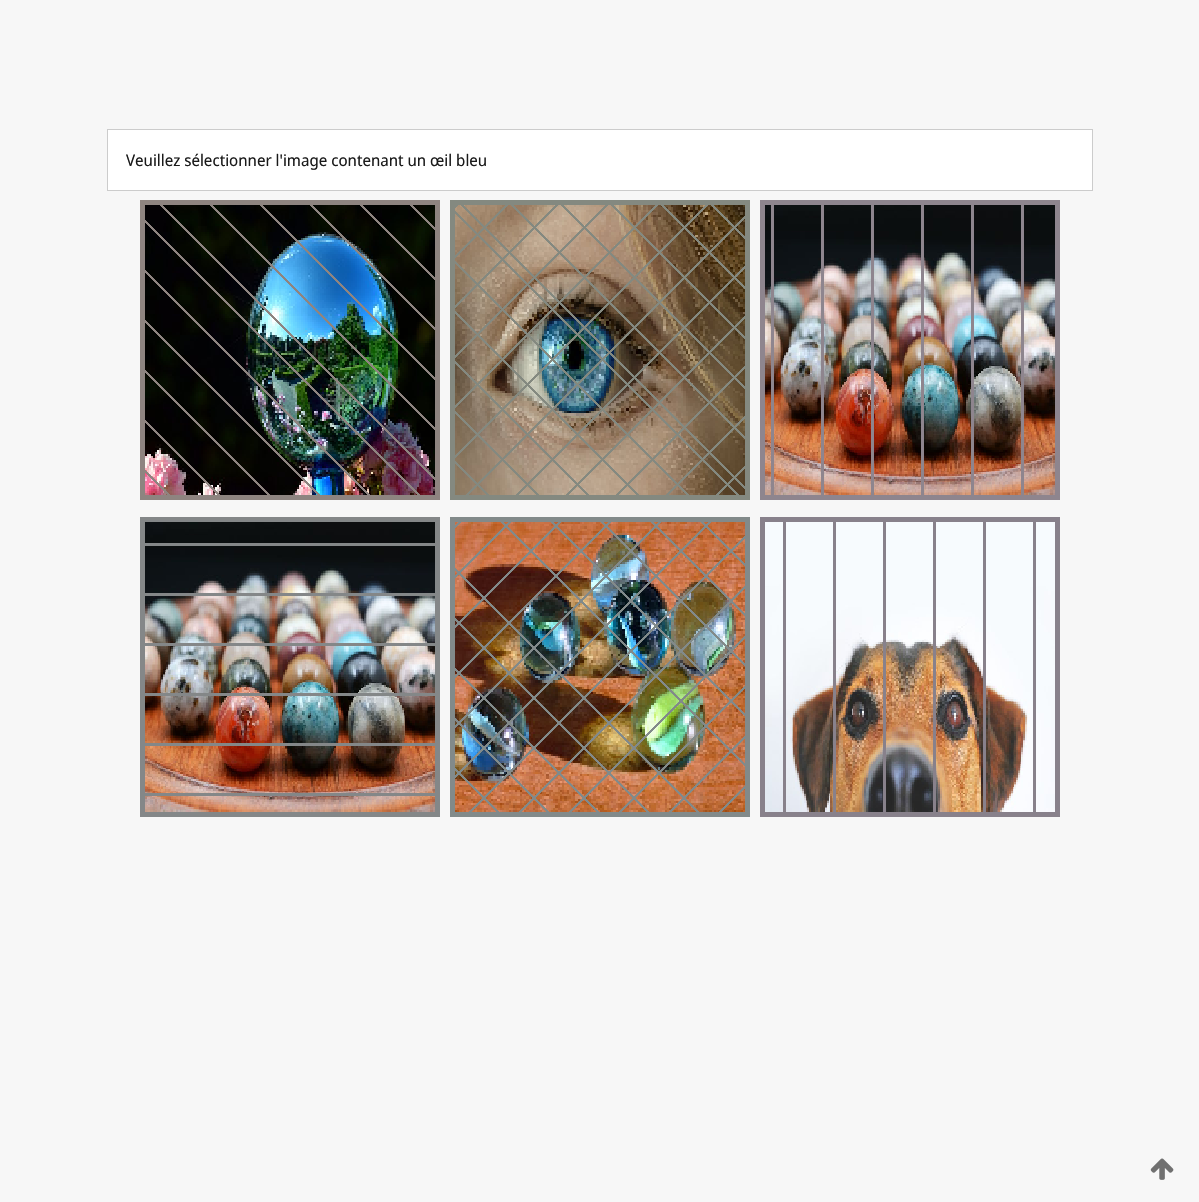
#include "include/core/SkBlurTypes.h"
#include "include/core/SkCanvas.h"
#include "include/core/SkData.h"
#include "include/core/SkFont.h"
#include "include/core/SkFontMgr.h"
#include "include/core/SkImage.h"
#include "include/core/SkMaskFilter.h"
#include "include/core/SkPaint.h"
#include "include/core/SkPathBuilder.h"
#include "include/core/SkTextBlob.h"
#include "include/effects/SkDashPathEffect.h"
#include "include/effects/SkGradientShader.h"
#include "include/utils/SkParsePath.h"

extern sk_sp<SkFontMgr> fontMgr;

static SkFont font(const char* family, int weight, float size, bool italic = false) {
    SkFontStyle style(weight, SkFontStyle::kNormal_Width,
        italic ? SkFontStyle::kItalic_Slant : SkFontStyle::kUpright_Slant);
    SkFont result(fontMgr->matchFamilyStyle(family, style), size);
    result.setSubpixel(true);
    return result;
}

static void drawLabel(SkCanvas* canvas, const char* s, float x, float y, const SkFont& font, SkColor color) {
    SkPaint ink(SkColor4f::FromColor(color));
    ink.setAntiAlias(true);
    canvas->drawString(s, x, y, font, ink);
}

static void drawPhoto(SkCanvas* canvas, const char* path, float x, float y, float w, float h) {
    auto image = SkImages::DeferredFromEncodedData(SkData::MakeFromFileName(path));
    canvas->drawImageRect(image, SkRect::MakeXYWH(x, y, w, h), SkSamplingOptions());
}

void draw(SkCanvas* canvas) {
    SkPaint paint;
    paint.setAntiAlias(true);
    canvas->clear(0xFFF7F7F7);
    paint.setColor(0xFFFFFFFF);
    canvas->drawRect(SkRect::MakeXYWH(107.5f, 129.5f, 985, 61), paint);
    paint.setStroke(true);
    paint.setStrokeWidth(1);
    paint.setColor(0xFFCCCCCC);
    canvas->drawRect(SkRect::MakeXYWH(107.5f, 129.5f, 985, 61), paint);
    SkFont font1 = font("Noto Sans Display", 400, 16);
    drawLabel(canvas, "Veuillez sélectionner l'image contenant un œil bleu", 126, 166, font1, 0xFF1A1A1A);
    drawPhoto(canvas, "assets/img1.png", 140, 200, 300, 300);
    drawPhoto(canvas, "assets/img2.png", 450, 200, 300, 300);
    drawPhoto(canvas, "assets/img3.png", 760, 200, 300, 300);
    drawPhoto(canvas, "assets/img4.png", 140, 517, 300, 300);
    drawPhoto(canvas, "assets/img5.png", 450, 517, 300, 300);
    drawPhoto(canvas, "assets/img6.png", 760, 517, 300, 300);
    drawPhoto(canvas, "assets/img7.png", 1150, 1158, 24, 22);
}
